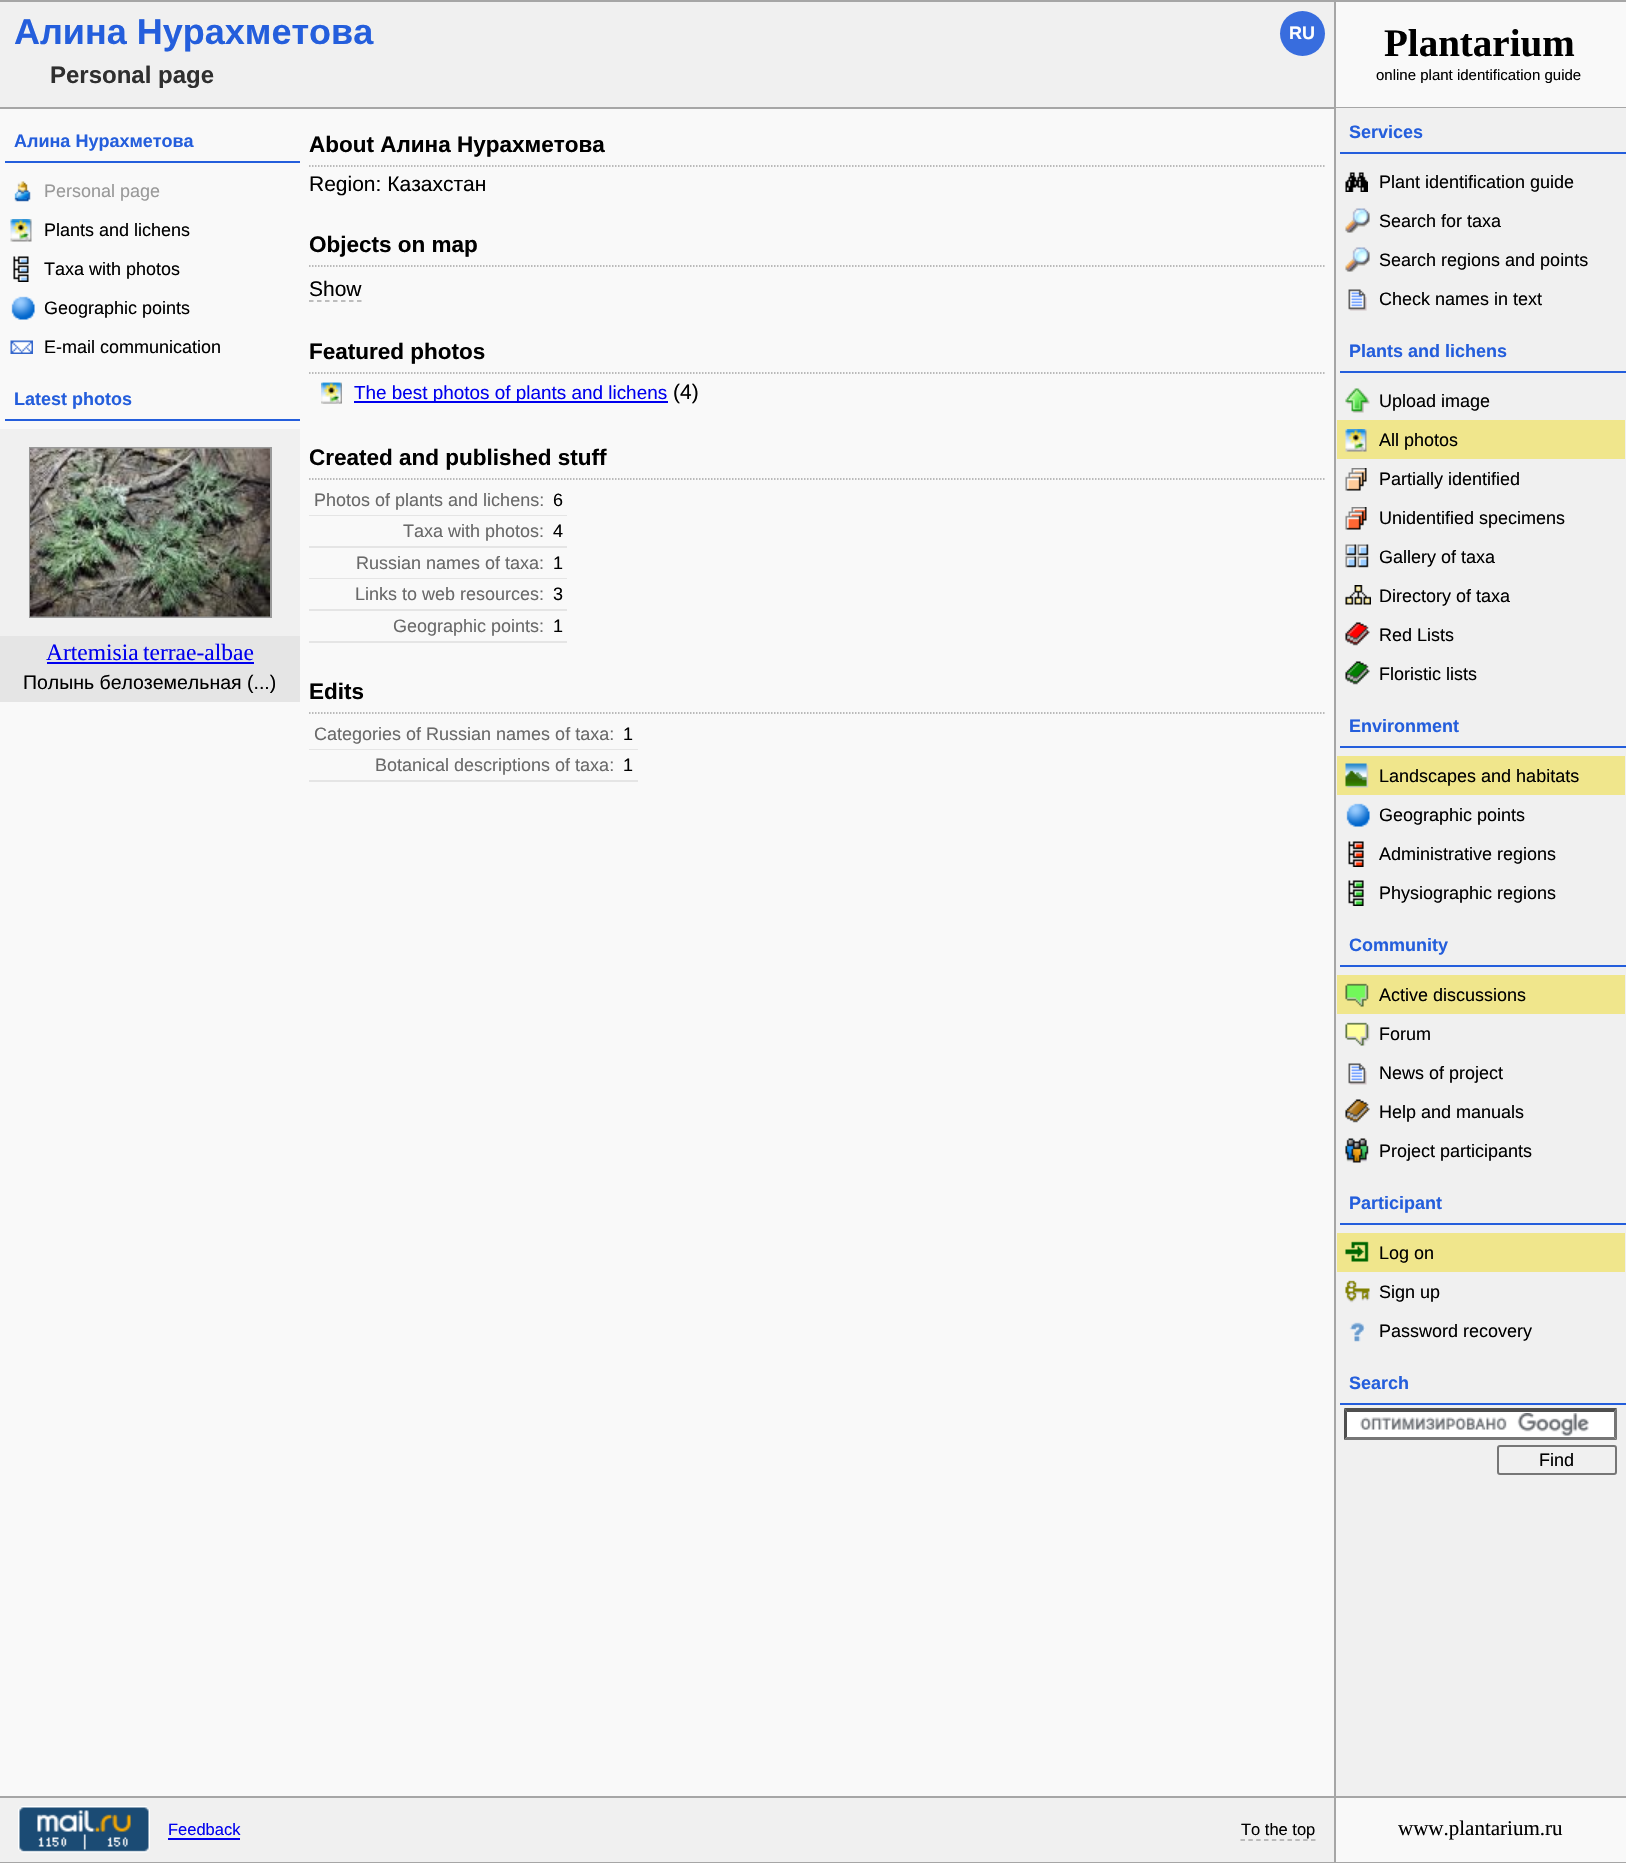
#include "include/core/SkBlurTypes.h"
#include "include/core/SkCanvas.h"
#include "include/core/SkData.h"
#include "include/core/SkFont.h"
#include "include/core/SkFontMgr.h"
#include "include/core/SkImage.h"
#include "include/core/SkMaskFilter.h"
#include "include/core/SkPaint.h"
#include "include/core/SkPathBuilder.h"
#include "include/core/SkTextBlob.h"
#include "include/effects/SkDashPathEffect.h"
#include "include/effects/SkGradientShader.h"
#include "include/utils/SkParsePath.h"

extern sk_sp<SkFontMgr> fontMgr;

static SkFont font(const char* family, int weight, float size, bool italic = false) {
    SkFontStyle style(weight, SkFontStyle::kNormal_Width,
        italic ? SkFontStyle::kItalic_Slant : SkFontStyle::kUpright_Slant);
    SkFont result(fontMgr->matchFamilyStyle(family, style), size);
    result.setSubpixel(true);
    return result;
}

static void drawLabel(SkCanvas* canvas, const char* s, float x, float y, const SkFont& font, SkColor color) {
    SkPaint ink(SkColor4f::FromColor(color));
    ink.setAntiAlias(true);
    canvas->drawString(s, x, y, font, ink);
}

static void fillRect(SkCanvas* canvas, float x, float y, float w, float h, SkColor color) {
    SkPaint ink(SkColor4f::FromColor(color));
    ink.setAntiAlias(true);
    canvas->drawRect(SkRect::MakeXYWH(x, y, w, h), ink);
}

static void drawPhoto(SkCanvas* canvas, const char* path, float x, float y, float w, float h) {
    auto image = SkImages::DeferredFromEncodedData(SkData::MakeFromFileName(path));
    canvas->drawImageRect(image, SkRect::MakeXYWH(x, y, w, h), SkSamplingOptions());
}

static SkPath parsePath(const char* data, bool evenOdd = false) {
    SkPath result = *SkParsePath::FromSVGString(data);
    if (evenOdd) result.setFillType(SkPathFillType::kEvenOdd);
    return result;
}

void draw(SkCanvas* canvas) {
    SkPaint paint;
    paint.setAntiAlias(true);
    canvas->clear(0xFFF9F9F9);
    fillRect(canvas, 0, 2, 1334, 105, 0xFFF0F0F0);
    fillRect(canvas, 0, 107, 1334, 2, 0xFFA6A6A6);
    SkFont font1 = font("Liberation Sans", 700, 36);
    drawLabel(canvas, "Алина Нурахметова", 14, 44, font1, 0xFF245EDC);
    SkFont font2 = font("Liberation Sans", 700, 24);
    drawLabel(canvas, "Personal page", 50, 83, font2, 0xFF2F2F2F);
    paint.setColor(0xFF386DDE);
    canvas->drawCircle(1302.5f, 33.5f, 22.5f, paint);
    SkFont font3 = font("Liberation Sans", 700, 18);
    drawLabel(canvas, "RU", 1289, 39, font3, 0xFFFEFEFE);
    fillRect(canvas, 0, 0, 1626, 2, 0xFFA6A6A6);
    fillRect(canvas, 1334, 107, 292, 1, 0xFFA6A6A6);
    fillRect(canvas, 1334, 0, 2, 1796, 0xFFA6A6A6);
    SkFont font4 = font("Liberation Serif", 700, 39);
    drawLabel(canvas, "Plantarium", 1384, 56, font4, 0xFF000000);
    SkFont font5 = font("Liberation Sans", 400, 15);
    drawLabel(canvas, "online plant identification guide", 1376, 80, font5, 0xFF000000);
    fillRect(canvas, 5, 161, 295, 2, 0xFF245EDC);
    drawLabel(canvas, "Алина Нурахметова", 14, 147, font3, 0xFF245EDC);
    drawPhoto(canvas, "assets/img1.png", 14, 181, 17, 21);
    SkFont font6 = font("Liberation Sans", 400, 18);
    drawLabel(canvas, "Personal page", 44, 197, font6, 0xFF999999);
    drawPhoto(canvas, "assets/img2.png", 10, 219, 22, 23);
    drawLabel(canvas, "Plants and lichens", 44, 236, font6, 0xFF000000);
    drawPhoto(canvas, "assets/img3.png", 13, 256, 16, 26);
    drawLabel(canvas, "Taxa with photos", 44, 275, font6, 0xFF000000);
    drawPhoto(canvas, "assets/img4.png", 11, 296, 24, 24);
    drawLabel(canvas, "Geographic points", 44, 314, font6, 0xFF000000);
    drawPhoto(canvas, "assets/img5.png", 10, 340, 23, 14);
    drawLabel(canvas, "E-mail communication", 44, 353, font6, 0xFF000000);
    fillRect(canvas, 5, 419, 295, 2, 0xFF245EDC);
    drawLabel(canvas, "Latest photos", 14, 405, font3, 0xFF245EDC);
    fillRect(canvas, 0, 429, 300, 207, 0xFFF0F0F0);
    paint.setStroke(true);
    paint.setStrokeWidth(2);
    paint.setColor(0xFF999999);
    canvas->drawRect(SkRect::MakeXYWH(30, 448, 241, 169), paint);
    drawPhoto(canvas, "assets/img6.png", 30, 448, 240, 169);
    fillRect(canvas, 0, 636, 300, 66, 0xFFE5E5E5);
    SkFont font7 = font("Liberation Serif", 400, 23.5f);
    drawLabel(canvas, "Artemisia", 46, 660, font7, 0xFF0000EE);
    fillRect(canvas, 47, 662, 207, 2, 0xFF0000EE);
    drawLabel(canvas, "terrae-albae", 143, 660, font7, 0xFF0000EE);
    SkFont font8 = font("Liberation Sans", 400, 19.5f);
    drawLabel(canvas, "Полынь белоземельная (...)", 23, 689, font8, 0xFF000000);
    paint.setStrokeWidth(1.5f);
    paint.setColor(0xFFA6A6A6);
    paint.setPathEffect(SkDashPathEffect::Make({{1.5f, 1.5f}}, 0));
    canvas->drawPath(parsePath("M309 166H1324.5"), paint);
    paint.setPathEffect(nullptr);
    SkFont font9 = font("Liberation Sans", 700, 22.5f);
    drawLabel(canvas, "About Алина Нурахметова", 309, 152, font9, 0xFF000000);
    SkFont font10 = font("Liberation Sans", 400, 21);
    drawLabel(canvas, "Region: Казахстан", 309, 191, font10, 0xFF000000);
    paint.setPathEffect(SkDashPathEffect::Make({{1.5f, 1.5f}}, 0));
    canvas->drawPath(parsePath("M309 266H1324.5"), paint);
    paint.setPathEffect(nullptr);
    drawLabel(canvas, "Objects on map", 309, 252, font9, 0xFF000000);
    paint.setColor(0xFFA9A9A9);
    paint.setPathEffect(SkDashPathEffect::Make({{4.5f, 3.5f}}, 0));
    canvas->drawPath(parsePath("M309 301H361.5"), paint);
    paint.setPathEffect(nullptr);
    drawLabel(canvas, "Show", 309, 296, font10, 0xFF000000);
    paint.setColor(0xFFA6A6A6);
    paint.setPathEffect(SkDashPathEffect::Make({{1.5f, 1.5f}}, 0));
    canvas->drawPath(parsePath("M309 373H1324.5"), paint);
    paint.setPathEffect(nullptr);
    drawLabel(canvas, "Featured photos", 309, 359, font9, 0xFF000000);
    drawPhoto(canvas, "assets/img7.png", 321, 382, 21, 22);
    fillRect(canvas, 354, 401, 314, 2, 0xFF0000EE);
    SkFont font11 = font("Liberation Sans", 400, 18.9f);
    drawLabel(canvas, "The best photos of plants and lichens", 354, 399, font11, 0xFF0000EE);
    drawLabel(canvas, "(4)", 673, 399, font10, 0xFF000000);
    paint.setPathEffect(SkDashPathEffect::Make({{1.5f, 1.5f}}, 0));
    canvas->drawPath(parsePath("M309 479H1324.5"), paint);
    paint.setPathEffect(nullptr);
    drawLabel(canvas, "Created and published stuff", 309, 465, font9, 0xFF000000);
    fillRect(canvas, 309, 515, 258, 1, 0xFFE5E5E5);
    drawLabel(canvas, "Photos of plants and lichens:", 314, 506, font6, 0xFF696969);
    drawLabel(canvas, "6", 553, 506, font6, 0xFF000000);
    fillRect(canvas, 309, 546, 258, 2, 0xFFE5E5E5);
    drawLabel(canvas, "Taxa with photos:", 403, 537, font6, 0xFF696969);
    drawLabel(canvas, "4", 553, 537, font6, 0xFF000000);
    fillRect(canvas, 309, 578, 258, 1, 0xFFE5E5E5);
    drawLabel(canvas, "Russian names of taxa:", 356, 569, font6, 0xFF696969);
    drawLabel(canvas, "1", 553, 569, font6, 0xFF000000);
    fillRect(canvas, 309, 609, 258, 2, 0xFFE5E5E5);
    drawLabel(canvas, "Links to web resources:", 355, 600, font6, 0xFF696969);
    drawLabel(canvas, "3", 553, 600, font6, 0xFF000000);
    fillRect(canvas, 309, 641, 258, 2, 0xFFE5E5E5);
    drawLabel(canvas, "Geographic points:", 393, 632, font6, 0xFF696969);
    drawLabel(canvas, "1", 553, 632, font6, 0xFF000000);
    paint.setPathEffect(SkDashPathEffect::Make({{1.5f, 1.5f}}, 0));
    canvas->drawPath(parsePath("M309 713H1324.5"), paint);
    paint.setPathEffect(nullptr);
    drawLabel(canvas, "Edits", 309, 699, font9, 0xFF000000);
    fillRect(canvas, 309, 749, 329, 1, 0xFFE5E5E5);
    drawLabel(canvas, "Categories of Russian names of taxa:", 314, 740, font6, 0xFF696969);
    drawLabel(canvas, "1", 623, 740, font6, 0xFF000000);
    fillRect(canvas, 309, 780, 329, 2, 0xFFE5E5E5);
    drawLabel(canvas, "Botanical descriptions of taxa:", 375, 771, font6, 0xFF696969);
    drawLabel(canvas, "1", 623, 771, font6, 0xFF000000);
    fillRect(canvas, 1336, 108, 290, 1688, 0xFFF0F0F0);
    fillRect(canvas, 1340, 152, 286, 2, 0xFF245EDC);
    drawLabel(canvas, "Services", 1349, 138, font3, 0xFF245EDC);
    drawPhoto(canvas, "assets/img8.png", 1345, 172, 23, 20);
    drawLabel(canvas, "Plant identification guide", 1379, 188, font6, 0xFF000000);
    drawPhoto(canvas, "assets/img9.png", 1345, 208, 25, 25);
    drawLabel(canvas, "Search for taxa", 1379, 227, font6, 0xFF000000);
    drawPhoto(canvas, "assets/img9.png", 1345, 247, 25, 25);
    drawLabel(canvas, "Search regions and points", 1379, 266, font6, 0xFF000000);
    drawPhoto(canvas, "assets/img10.png", 1348, 289, 19, 22);
    drawLabel(canvas, "Check names in text", 1379, 305, font6, 0xFF000000);
    fillRect(canvas, 1340, 371, 286, 2, 0xFF245EDC);
    drawLabel(canvas, "Plants and lichens", 1349, 357, font3, 0xFF245EDC);
    drawPhoto(canvas, "assets/img11.png", 1345, 388, 25, 25);
    drawLabel(canvas, "Upload image", 1379, 407, font6, 0xFF000000);
    fillRect(canvas, 1337, 420, 288, 39, 0xFFF0E68C);
    drawPhoto(canvas, "assets/img12.png", 1345, 429, 22, 23);
    drawLabel(canvas, "All photos", 1379, 446, font6, 0xFF000000);
    drawPhoto(canvas, "assets/img13.png", 1345, 468, 22, 23);
    drawLabel(canvas, "Partially identified", 1379, 485, font6, 0xFF000000);
    drawPhoto(canvas, "assets/img14.png", 1345, 507, 22, 23);
    drawLabel(canvas, "Unidentified specimens", 1379, 524, font6, 0xFF000000);
    drawPhoto(canvas, "assets/img15.png", 1345, 544, 24, 24);
    drawLabel(canvas, "Gallery of taxa", 1379, 563, font6, 0xFF000000);
    drawPhoto(canvas, "assets/img16.png", 1345, 585, 26, 20);
    drawLabel(canvas, "Directory of taxa", 1379, 602, font6, 0xFF000000);
    drawPhoto(canvas, "assets/img17.png", 1345, 622, 25, 24);
    drawLabel(canvas, "Red Lists", 1379, 641, font6, 0xFF000000);
    drawPhoto(canvas, "assets/img18.png", 1345, 661, 25, 24);
    drawLabel(canvas, "Floristic lists", 1379, 680, font6, 0xFF000000);
    fillRect(canvas, 1340, 746, 286, 2, 0xFF245EDC);
    drawLabel(canvas, "Environment", 1349, 732, font3, 0xFF245EDC);
    fillRect(canvas, 1337, 756, 288, 39, 0xFFF0E68C);
    drawPhoto(canvas, "assets/img19.png", 1345, 763, 24, 25);
    drawLabel(canvas, "Landscapes and habitats", 1379, 782, font6, 0xFF000000);
    drawPhoto(canvas, "assets/img20.png", 1346, 803, 24, 24);
    drawLabel(canvas, "Geographic points", 1379, 821, font6, 0xFF000000);
    drawPhoto(canvas, "assets/img21.png", 1348, 841, 16, 26);
    drawLabel(canvas, "Administrative regions", 1379, 860, font6, 0xFF000000);
    drawPhoto(canvas, "assets/img22.png", 1348, 880, 16, 26);
    drawLabel(canvas, "Physiographic regions", 1379, 899, font6, 0xFF000000);
    fillRect(canvas, 1340, 965, 286, 2, 0xFF245EDC);
    drawLabel(canvas, "Community", 1349, 951, font3, 0xFF245EDC);
    fillRect(canvas, 1337, 975, 288, 39, 0xFFF0E68C);
    drawPhoto(canvas, "assets/img23.png", 1345, 983, 24, 24);
    drawLabel(canvas, "Active discussions", 1379, 1001, font6, 0xFF000000);
    drawPhoto(canvas, "assets/img24.png", 1345, 1022, 25, 24);
    drawLabel(canvas, "Forum", 1379, 1040, font6, 0xFF000000);
    drawPhoto(canvas, "assets/img10.png", 1348, 1063, 19, 22);
    drawLabel(canvas, "News of project", 1379, 1079, font6, 0xFF000000);
    drawPhoto(canvas, "assets/img25.png", 1345, 1099, 25, 24);
    drawLabel(canvas, "Help and manuals", 1379, 1118, font6, 0xFF000000);
    drawPhoto(canvas, "assets/img26.png", 1345, 1138, 24, 25);
    drawLabel(canvas, "Project participants", 1379, 1157, font6, 0xFF000000);
    fillRect(canvas, 1340, 1223, 286, 2, 0xFF245EDC);
    drawLabel(canvas, "Participant", 1349, 1209, font3, 0xFF245EDC);
    fillRect(canvas, 1337, 1233, 288, 39, 0xFFF0E68C);
    drawPhoto(canvas, "assets/img27.png", 1345, 1241, 24, 21);
    drawLabel(canvas, "Log on", 1379, 1259, font6, 0xFF000000);
    drawPhoto(canvas, "assets/img28.png", 1345, 1280, 25, 23);
    drawLabel(canvas, "Sign up", 1379, 1298, font6, 0xFF000000);
    drawPhoto(canvas, "assets/img29.png", 1349, 1322, 16, 20);
    drawLabel(canvas, "Password recovery", 1379, 1337, font6, 0xFF000000);
    fillRect(canvas, 1340, 1403, 286, 2, 0xFF245EDC);
    drawLabel(canvas, "Search", 1349, 1389, font3, 0xFF245EDC);
    fillRect(canvas, 1344, 1409, 273, 31, 0xFFFFFFFF);
    drawPhoto(canvas, "assets/img30.png", 1360, 1413, 229, 23);
    paint.setStroke(false);
    paint.setColor(0xFF4F4F4F);
    canvas->drawPath(parsePath("M1344 1408H1617L1614 1412H1347Z"), paint);
    paint.setColor(0xFF767676);
    canvas->drawPath(parsePath("M1617 1408.5V1440L1614 1437V1411.5Z"), paint);
    canvas->drawPath(parsePath("M1617 1440H1344L1347 1437H1614Z"), paint);
    paint.setColor(0xFF4F4F4F);
    canvas->drawPath(parsePath("M1344 1440V1408.5L1347 1411.5V1437Z"), paint);
    paint.setStroke(true);
    paint.setStrokeWidth(2);
    paint.setColor(0xFF767676);
    canvas->drawRoundRect(SkRect::MakeXYWH(1498, 1446, 118, 28), 2, 2, paint);
    drawLabel(canvas, "Find", 1539, 1466, font6, 0xFF000000);
    fillRect(canvas, 0, 1798, 1334, 64, 0xFFF0F0F0);
    fillRect(canvas, 0, 1796, 1626, 2, 0xFFA6A6A6);
    fillRect(canvas, 0, 1862, 1626, 1, 0xFFA6A6A6);
    drawPhoto(canvas, "assets/img31.png", 18, 1806, 132, 47);
    SkFont font12 = font("Liberation Sans", 400, 16.5f);
    drawLabel(canvas, "Feedback", 168, 1835, font12, 0xFF0000EE);
    fillRect(canvas, 168, 1838, 72, 2, 0xFF0000EE);
    drawLabel(canvas, "To the top", 1241, 1835, font12, 0xFF000000);
    paint.setStrokeWidth(1.5f);
    paint.setColor(0xFFA9A9A9);
    paint.setPathEffect(SkDashPathEffect::Make({{4.5f, 3.33f}}, 0));
    canvas->drawPath(parsePath("M1240.5 1840H1315.5"), paint);
    paint.setPathEffect(nullptr);
    fillRect(canvas, 1334, 1796, 2, 67, 0xFFA6A6A6);
    SkFont font13 = font("Liberation Serif", 400, 21);
    drawLabel(canvas, "www.plantarium.ru", 1398, 1835, font13, 0xFF000000);
}
